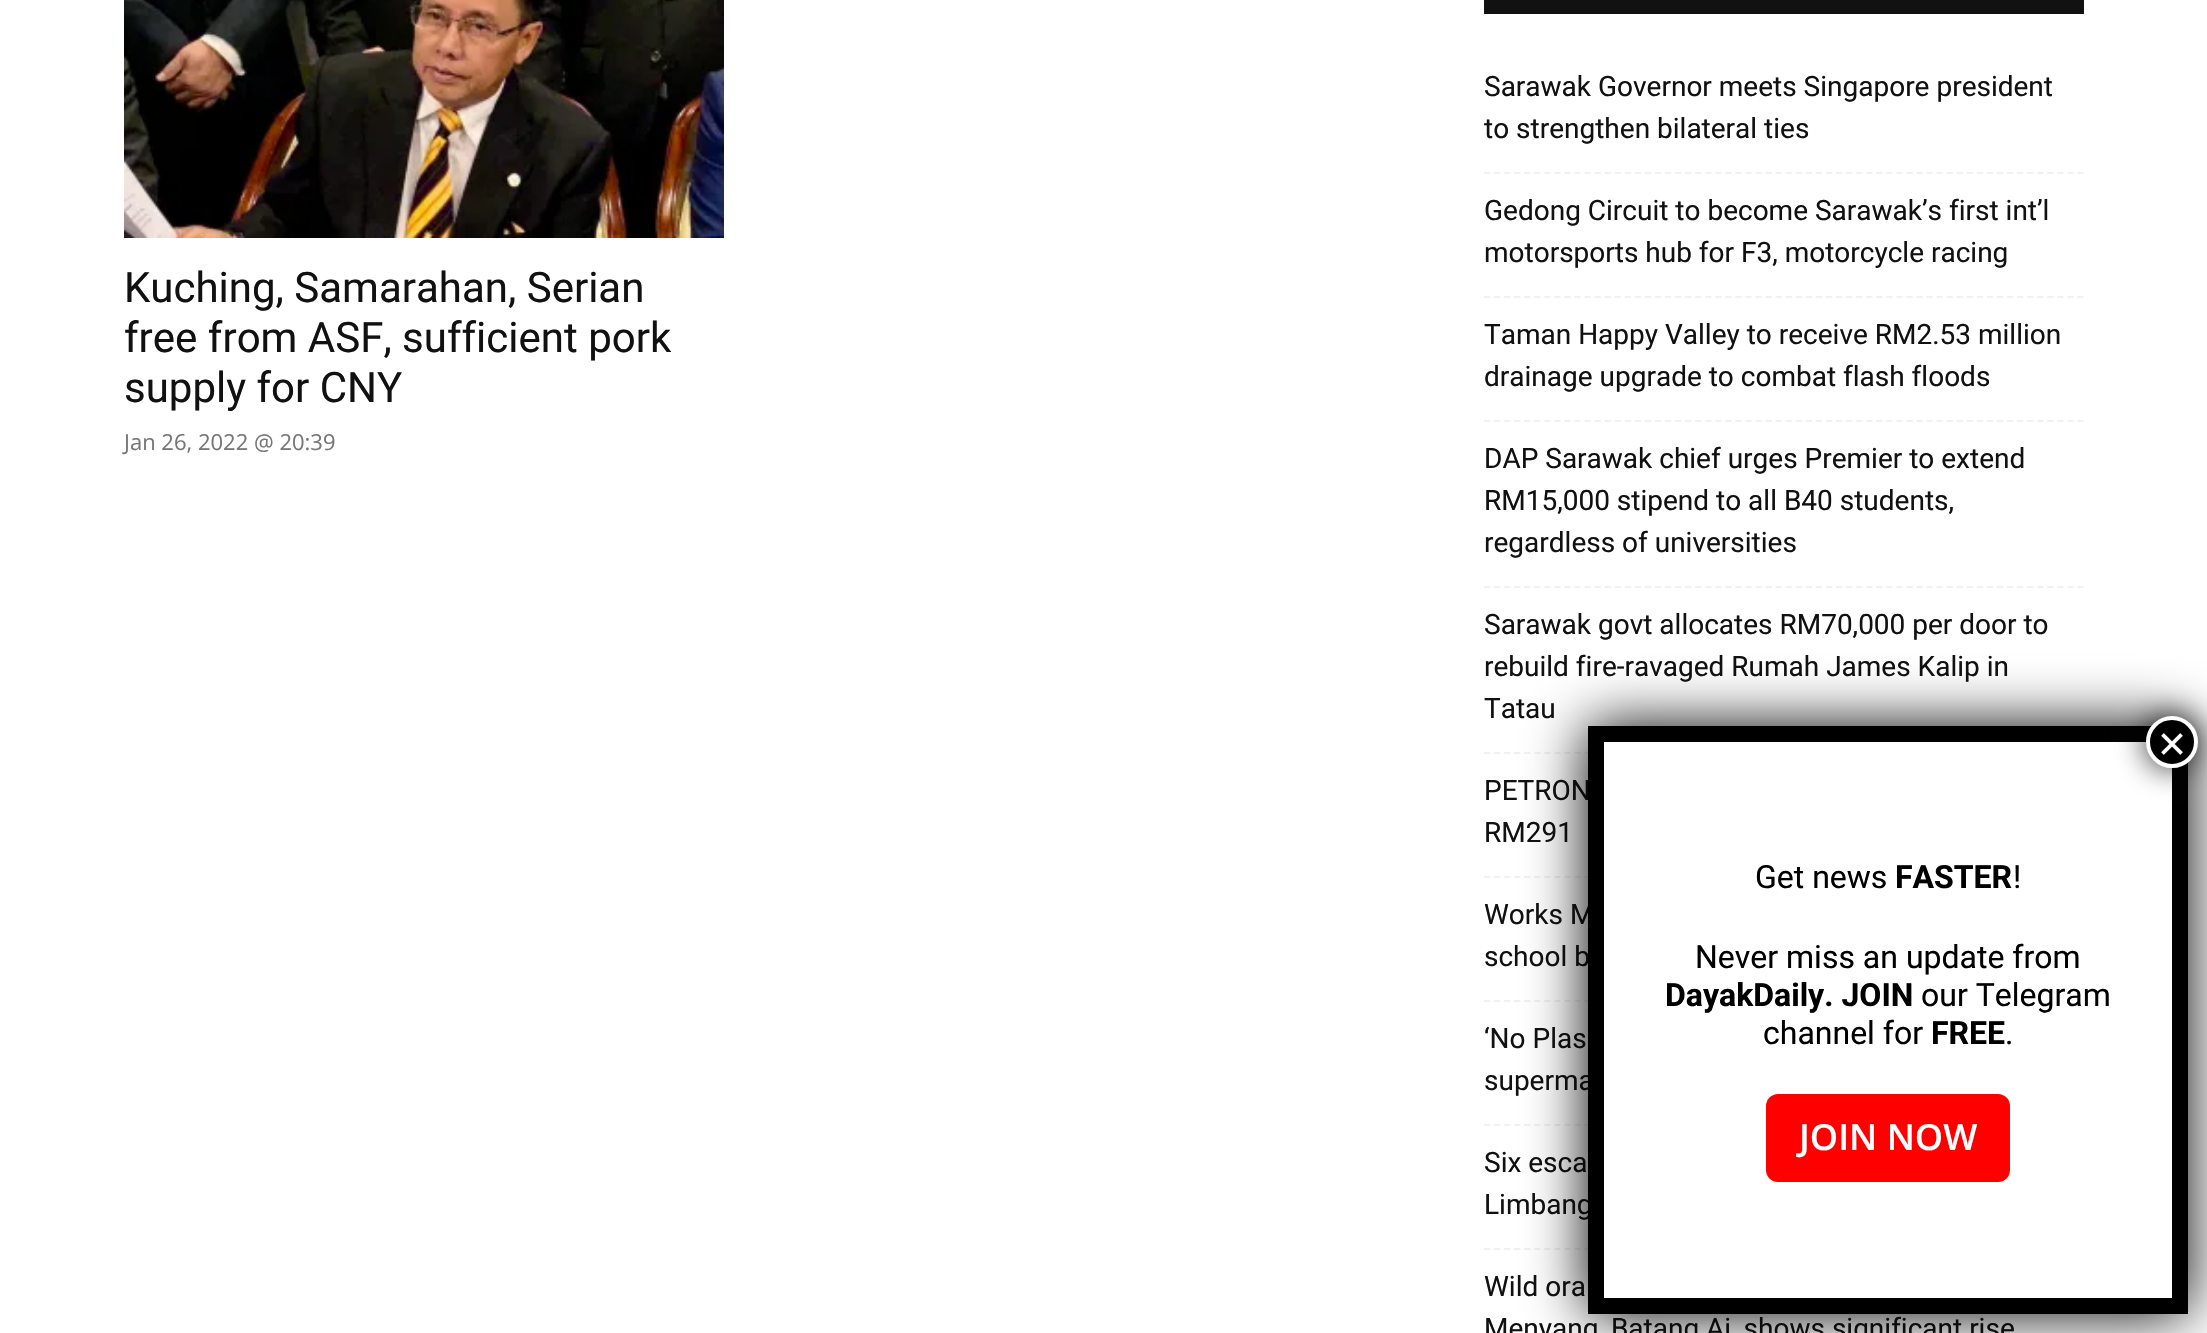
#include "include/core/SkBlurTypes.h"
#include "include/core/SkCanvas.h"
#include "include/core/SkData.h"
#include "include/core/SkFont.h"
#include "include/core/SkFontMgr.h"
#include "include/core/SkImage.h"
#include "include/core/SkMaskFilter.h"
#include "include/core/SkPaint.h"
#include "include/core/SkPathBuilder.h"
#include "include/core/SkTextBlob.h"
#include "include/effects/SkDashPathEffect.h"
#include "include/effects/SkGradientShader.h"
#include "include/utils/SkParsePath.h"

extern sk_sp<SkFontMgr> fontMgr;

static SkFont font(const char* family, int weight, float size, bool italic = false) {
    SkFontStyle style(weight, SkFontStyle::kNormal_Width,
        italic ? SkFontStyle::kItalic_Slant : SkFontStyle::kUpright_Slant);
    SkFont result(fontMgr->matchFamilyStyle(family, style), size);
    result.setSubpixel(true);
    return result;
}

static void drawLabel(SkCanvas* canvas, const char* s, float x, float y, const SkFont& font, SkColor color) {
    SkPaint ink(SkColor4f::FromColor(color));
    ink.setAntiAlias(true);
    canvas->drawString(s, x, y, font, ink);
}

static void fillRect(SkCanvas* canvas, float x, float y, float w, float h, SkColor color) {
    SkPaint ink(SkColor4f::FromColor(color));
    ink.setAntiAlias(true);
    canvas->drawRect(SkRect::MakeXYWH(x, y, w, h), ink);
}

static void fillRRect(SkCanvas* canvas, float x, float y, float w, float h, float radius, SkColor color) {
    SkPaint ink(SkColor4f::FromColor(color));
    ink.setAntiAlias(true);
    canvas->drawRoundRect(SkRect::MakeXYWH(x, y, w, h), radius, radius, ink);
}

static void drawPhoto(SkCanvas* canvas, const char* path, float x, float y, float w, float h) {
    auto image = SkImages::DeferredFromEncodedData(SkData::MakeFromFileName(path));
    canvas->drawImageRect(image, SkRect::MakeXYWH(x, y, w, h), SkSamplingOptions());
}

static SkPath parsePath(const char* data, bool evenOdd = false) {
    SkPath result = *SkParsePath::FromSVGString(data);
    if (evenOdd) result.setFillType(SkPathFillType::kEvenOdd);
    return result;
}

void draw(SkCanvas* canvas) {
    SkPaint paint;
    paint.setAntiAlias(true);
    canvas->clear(0xFFFFFFFF);
    drawPhoto(canvas, "assets/img1.png", 124, 0, 600, 238);
    SkFont font1 = font("Roboto", 400, 42);
    drawLabel(canvas, "Kuching, Samarahan, Serian", 124, 302, font1, 0xFF111111);
    drawLabel(canvas, "free from ASF, sufficient pork", 124, 352, font1, 0xFF111111);
    drawLabel(canvas, "supply for CNY", 124, 402, font1, 0xFF111111);
    SkFont font2 = font("Open Sans", 400, 22);
    drawLabel(canvas, "Jan 26, 2022 @ 20:39", 124, 450, font2, 0xFF767676);
    fillRect(canvas, 1484, 0, 600, 14, 0xFF111111);
    paint.setStroke(true);
    paint.setStrokeWidth(2);
    paint.setColor(0xFFF1F1F1);
    paint.setPathEffect(SkDashPathEffect::Make({{6, 4.06f}}, 0));
    canvas->drawPath(parsePath("M1484 173H2084"), paint);
    paint.setPathEffect(nullptr);
    SkFont font3 = font("Roboto", 400, 28);
    drawLabel(canvas, "Sarawak Governor meets Singapore president", 1484, 96, font3, 0xFF111111);
    drawLabel(canvas, "to strengthen bilateral ties", 1484, 138, font3, 0xFF111111);
    paint.setPathEffect(SkDashPathEffect::Make({{6, 4.06f}}, 0));
    canvas->drawPath(parsePath("M1484 297H2084"), paint);
    paint.setPathEffect(nullptr);
    drawLabel(canvas, "Gedong Circuit to become Sarawak’s first int’l", 1484, 220, font3, 0xFF111111);
    drawLabel(canvas, "motorsports hub for F3, motorcycle racing", 1484, 262, font3, 0xFF111111);
    paint.setPathEffect(SkDashPathEffect::Make({{6, 4.06f}}, 0));
    canvas->drawPath(parsePath("M1484 421H2084"), paint);
    paint.setPathEffect(nullptr);
    drawLabel(canvas, "Taman Happy Valley to receive RM2.53 million", 1484, 344, font3, 0xFF111111);
    drawLabel(canvas, "drainage upgrade to combat flash floods", 1484, 386, font3, 0xFF111111);
    paint.setPathEffect(SkDashPathEffect::Make({{6, 4.06f}}, 0));
    canvas->drawPath(parsePath("M1484 587H2084"), paint);
    paint.setPathEffect(nullptr);
    drawLabel(canvas, "DAP Sarawak chief urges Premier to extend", 1484, 468, font3, 0xFF111111);
    drawLabel(canvas, "RM15,000 stipend to all B40 students,", 1484, 510, font3, 0xFF111111);
    drawLabel(canvas, "regardless of universities", 1484, 552, font3, 0xFF111111);
    paint.setPathEffect(SkDashPathEffect::Make({{6, 4.06f}}, 0));
    canvas->drawPath(parsePath("M1484 753H2084"), paint);
    paint.setPathEffect(nullptr);
    drawLabel(canvas, "Sarawak govt allocates RM70,000 per door to", 1484, 634, font3, 0xFF111111);
    drawLabel(canvas, "rebuild fire-ravaged Rumah James Kalip in", 1484, 676, font3, 0xFF111111);
    drawLabel(canvas, "Tatau", 1484, 718, font3, 0xFF111111);
    paint.setPathEffect(SkDashPathEffect::Make({{6, 4.06f}}, 0));
    canvas->drawPath(parsePath("M1484 877H2084"), paint);
    paint.setPathEffect(nullptr);
    drawLabel(canvas, "PETRON", 1484, 800, font3, 0xFF111111);
    drawLabel(canvas, "RM291", 1484, 842, font3, 0xFF111111);
    paint.setPathEffect(SkDashPathEffect::Make({{6, 4.06f}}, 0));
    canvas->drawPath(parsePath("M1484 1001H2084"), paint);
    paint.setPathEffect(nullptr);
    drawLabel(canvas, "Works M", 1484, 924, font3, 0xFF111111);
    drawLabel(canvas, "school b", 1484, 966, font3, 0xFF111111);
    paint.setPathEffect(SkDashPathEffect::Make({{6, 4.06f}}, 0));
    canvas->drawPath(parsePath("M1484 1125H2084"), paint);
    paint.setPathEffect(nullptr);
    drawLabel(canvas, "‘No Plas", 1484, 1048, font3, 0xFF111111);
    drawLabel(canvas, "superma", 1484, 1090, font3, 0xFF111111);
    paint.setPathEffect(SkDashPathEffect::Make({{6, 4.06f}}, 0));
    canvas->drawPath(parsePath("M1484 1249H2084"), paint);
    paint.setPathEffect(nullptr);
    drawLabel(canvas, "Six esca", 1484, 1172, font3, 0xFF111111);
    drawLabel(canvas, "Limbang", 1484, 1214, font3, 0xFF111111);
    drawLabel(canvas, "Wild ora", 1484, 1296, font3, 0xFF111111);
    drawLabel(canvas, "Menyang, Batang Ai, shows significant rise", 1484, 1338, font3, 0xFF111111);
    paint.setStroke(false);
    paint.setColor(0xFF020202);
    paint.setMaskFilter(SkMaskFilter::MakeBlur(kNormal_SkBlurStyle, 30));
    canvas->drawRoundRect(SkRect::MakeXYWH(1588, 726, 600, 588), 6, 6, paint);
    paint.setMaskFilter(nullptr);
    fillRect(canvas, 1604, 742, 568, 556, 0xFFFFFFFF);
    paint.setStroke(true);
    paint.setStrokeWidth(16);
    paint.setColor(0xFF000000);
    canvas->drawPath(parsePath("M1596 734H2180V1306H1596Z"), paint);
    paint.setStroke(false);
    paint.setColor(0xBF020202);
    paint.setMaskFilter(SkMaskFilter::MakeBlur(kNormal_SkBlurStyle, 15));
    canvas->drawRoundRect(SkRect::MakeXYWH(2144, 714, 56, 56), 28, 28, paint);
    paint.setMaskFilter(nullptr);
    paint.setColor(0xFF000000);
    canvas->drawCircle(2172, 742, 24, paint);
    paint.setStroke(true);
    paint.setStrokeWidth(4);
    paint.setColor(0xFFFFFFFF);
    canvas->drawCircle(2172, 742, 24, paint);
    SkFont font4 = font("Liberation Sans", 400, 48);
    drawLabel(canvas, "×", 2158, 760, font4, 0xFFFFFFFF);
    SkFont font5 = font("Roboto", 400, 32);
    drawLabel(canvas, "Get news", 1755, 888, font5, 0xFF000000);
    SkFont font6 = font("Roboto", 700, 32);
    drawLabel(canvas, "FASTER", 1895, 888, font6, 0xFF000000);
    drawLabel(canvas, "!", 2013, 888, font5, 0xFF000000);
    drawLabel(canvas, "Never miss an update from", 1695, 968, font5, 0xFF000000);
    drawLabel(canvas, "DayakDaily. JOIN", 1665, 1006, font6, 0xFF000000);
    drawLabel(canvas, "our Telegram", 1921, 1006, font5, 0xFF000000);
    drawLabel(canvas, "channel for", 1763, 1044, font5, 0xFF000000);
    drawLabel(canvas, "FREE", 1931, 1044, font6, 0xFF000000);
    drawLabel(canvas, ".", 2005, 1044, font5, 0xFF000000);
    fillRRect(canvas, 1766, 1094, 244, 88, 12, 0xFFFF0000);
    SkFont font7 = font("Open Sans", 600, 36);
    drawLabel(canvas, "JOIN NOW", 1799, 1150, font7, 0xFFFFFFFF);
}
